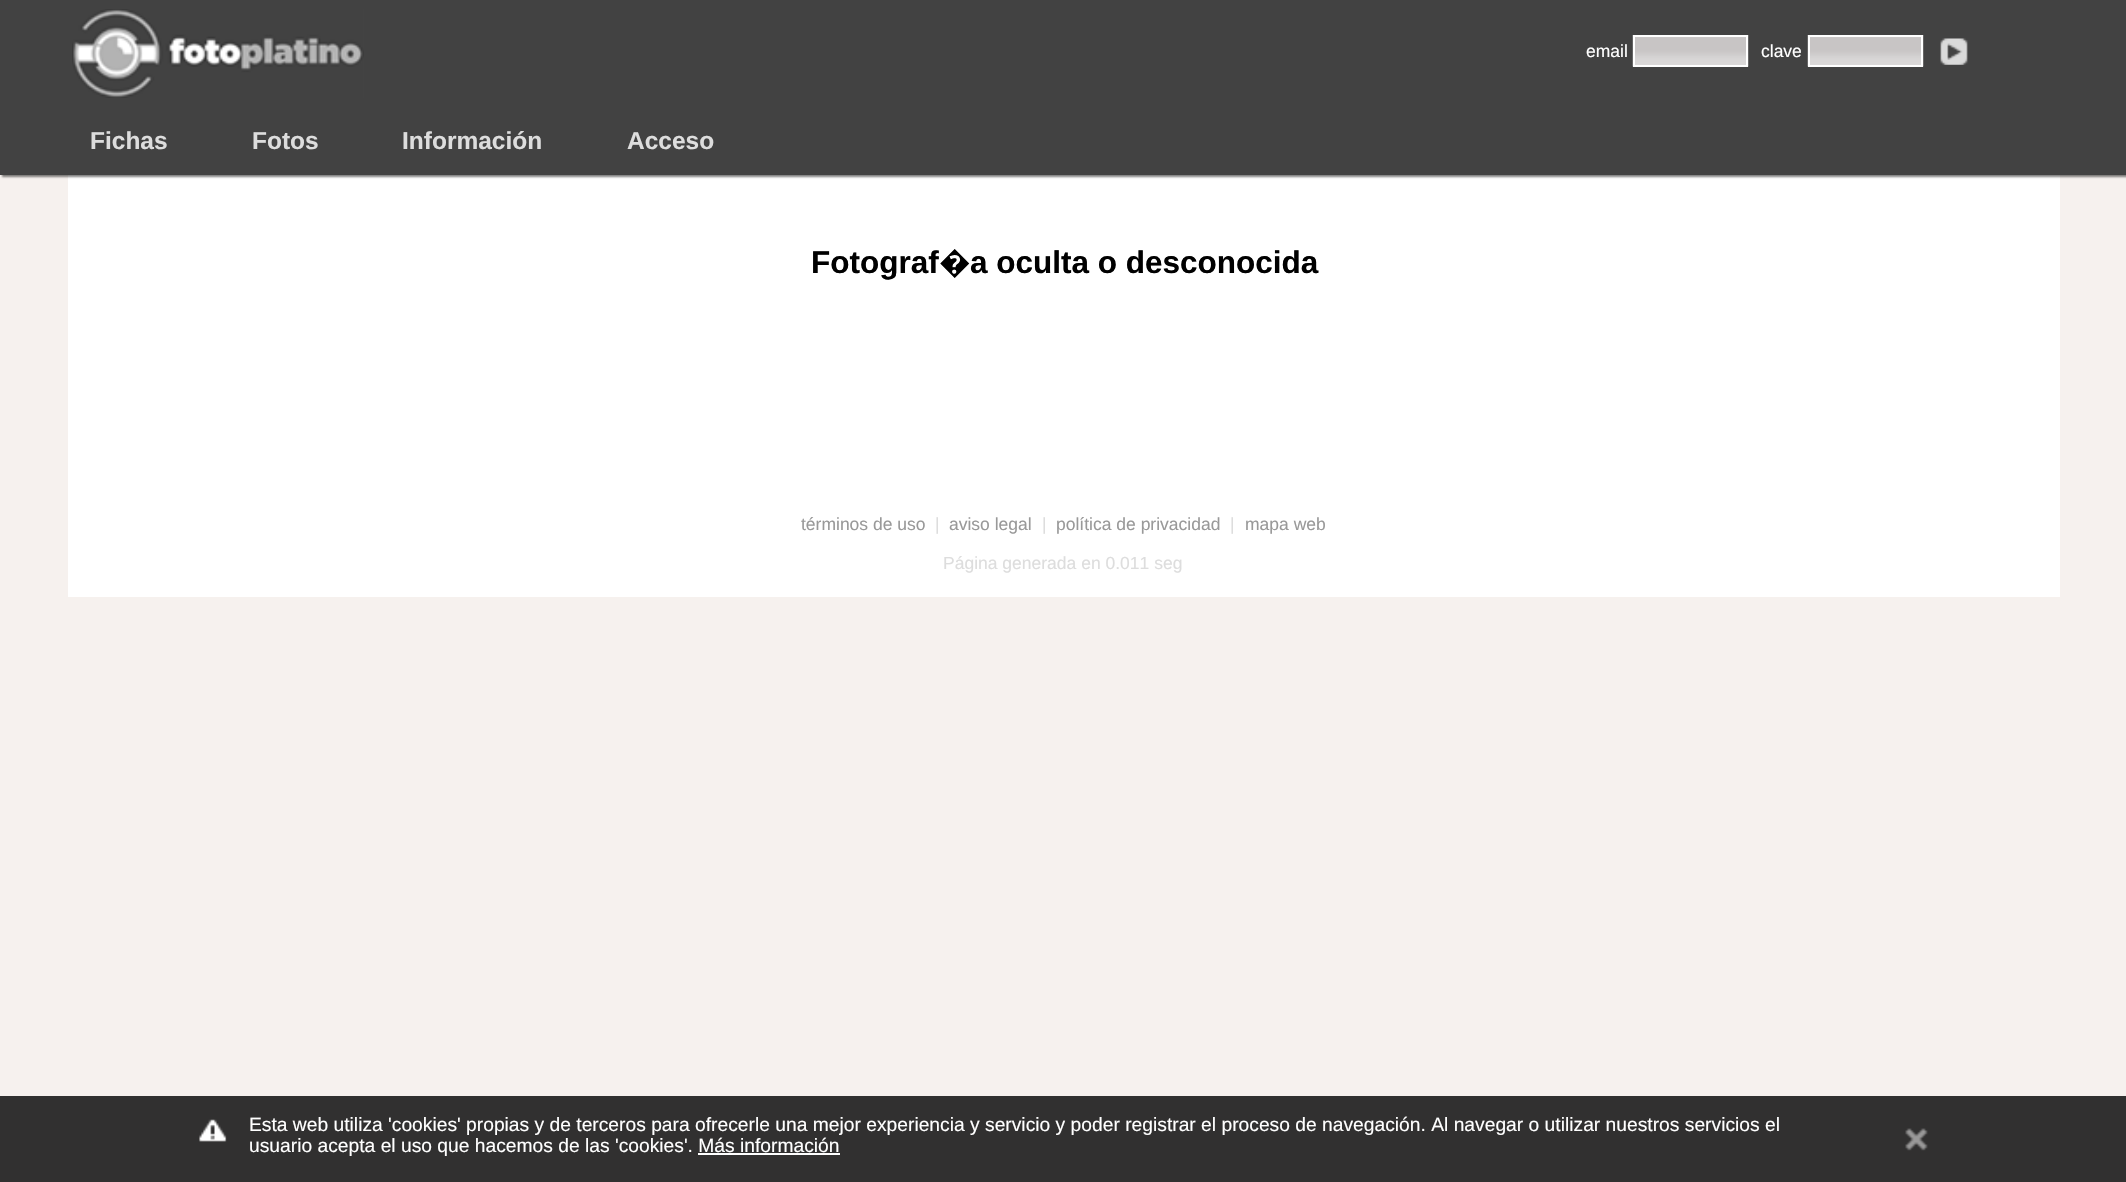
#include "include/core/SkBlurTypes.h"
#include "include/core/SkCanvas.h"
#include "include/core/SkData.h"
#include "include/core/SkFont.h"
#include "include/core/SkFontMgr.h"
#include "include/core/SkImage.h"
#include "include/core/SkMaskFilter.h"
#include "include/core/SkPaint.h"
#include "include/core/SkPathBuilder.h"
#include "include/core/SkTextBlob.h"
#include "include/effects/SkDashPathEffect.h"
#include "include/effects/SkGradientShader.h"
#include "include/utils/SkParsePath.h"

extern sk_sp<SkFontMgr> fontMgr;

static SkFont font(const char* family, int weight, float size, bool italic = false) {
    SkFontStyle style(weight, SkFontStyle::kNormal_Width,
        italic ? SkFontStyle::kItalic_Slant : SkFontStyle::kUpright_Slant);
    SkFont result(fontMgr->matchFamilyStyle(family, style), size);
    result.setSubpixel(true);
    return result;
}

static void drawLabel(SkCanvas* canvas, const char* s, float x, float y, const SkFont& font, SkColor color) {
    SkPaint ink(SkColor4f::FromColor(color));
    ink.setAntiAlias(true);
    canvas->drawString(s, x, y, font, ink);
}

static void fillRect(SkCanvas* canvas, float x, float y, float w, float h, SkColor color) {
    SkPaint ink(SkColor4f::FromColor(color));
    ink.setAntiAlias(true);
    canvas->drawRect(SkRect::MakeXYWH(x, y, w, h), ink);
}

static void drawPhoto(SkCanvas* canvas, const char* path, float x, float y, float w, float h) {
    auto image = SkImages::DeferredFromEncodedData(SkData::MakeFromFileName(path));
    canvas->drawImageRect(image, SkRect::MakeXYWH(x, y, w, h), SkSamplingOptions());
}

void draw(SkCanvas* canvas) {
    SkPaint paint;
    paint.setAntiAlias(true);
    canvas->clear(0xFFF6F1EE);
    fillRect(canvas, 0, 0, 2126, 105, 0xFF424242);
    drawPhoto(canvas, "assets/img1.png", 72, 9, 292, 89);
    SkFont font1 = font("Liberation Sans", 400, 17.5f);
    drawLabel(canvas, "email", 1586, 57, font1, 0xFFFFFFFF);
    drawPhoto(canvas, "assets/img2.png", 1632, 35, 117, 32);
    paint.setStroke(true);
    paint.setStrokeWidth(2);
    paint.setColor(0xFFFFFFFF);
    canvas->drawRect(SkRect::MakeXYWH(1634, 36, 113, 30), paint);
    drawLabel(canvas, "clave", 1761, 57, font1, 0xFFFFFFFF);
    drawPhoto(canvas, "assets/img2.png", 1807, 35, 117, 32);
    canvas->drawRect(SkRect::MakeXYWH(1809, 36, 113, 30), paint);
    drawPhoto(canvas, "assets/img3.png", 1940, 38, 28, 27);
    fillRect(canvas, 68, 175, 1992, 422, 0xFFFFFFFF);
    paint.setStroke(false);
    paint.setColor(0x80000000);
    paint.setMaskFilter(SkMaskFilter::MakeBlur(kNormal_SkBlurStyle, 1));
    canvas->drawRect(SkRect::MakeXYWH(2, 107, 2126, 70), paint);
    paint.setMaskFilter(nullptr);
    fillRect(canvas, 0, 105, 2126, 70, 0xFF424242);
    SkFont font2 = font("Liberation Sans", 700, 24.5f);
    drawLabel(canvas, "Fichas", 90, 149, font2, 0xFFDDDDDD);
    drawLabel(canvas, "Fotos", 252, 149, font2, 0xFFDDDDDD);
    drawLabel(canvas, "Información", 402, 149, font2, 0xFFDDDDDD);
    drawLabel(canvas, "Acceso", 627, 149, font2, 0xFFDDDDDD);
    SkFont font3 = font("Liberation Sans", 700, 31.5f);
    drawLabel(canvas, "Fotograf", 811, 273, font3, 0xFF000000);
    SkFont font4 = font("Noto Sans", 700, 31.5f);
    drawLabel(canvas, "�", 939, 273, font4, 0xFF000000);
    drawLabel(canvas, "a oculta o desconocida", 970, 273, font3, 0xFF000000);
    drawLabel(canvas, "términos de uso", 801, 530, font1, 0xFF999999);
    drawLabel(canvas, "|", 935, 530, font1, 0xFFDDDDDD);
    drawLabel(canvas, "aviso legal", 949, 530, font1, 0xFF999999);
    drawLabel(canvas, "|", 1042, 530, font1, 0xFFDDDDDD);
    drawLabel(canvas, "política de privacidad", 1056, 530, font1, 0xFF999999);
    drawLabel(canvas, "|", 1230, 530, font1, 0xFFDDDDDD);
    drawLabel(canvas, "mapa web", 1245, 530, font1, 0xFF999999);
    drawLabel(canvas, "Página generada en 0.011 seg", 943, 569, font1, 0xFFDDDDDD);
    fillRect(canvas, 0, 1096, 2126, 86, 0xFF313030);
    drawPhoto(canvas, "assets/img4.png", 199, 1119, 28, 23);
    SkFont font5 = font("Liberation Sans", 400, 19.25f);
    drawLabel(canvas, "Esta web utiliza 'cookies' propias y de terceros para ofrecerle una mejor experiencia y servicio y poder registrar el proceso de navegación. Al navegar o utilizar nuestros servicios el", 249, 1131, font5, 0xFFFFFFFF);
    drawLabel(canvas, "usuario acepta el uso que hacemos de las 'cookies'. Más información", 249, 1152, font5, 0xFFFFFFFF);
    drawPhoto(canvas, "assets/img5.png", 1905, 1128, 23, 23);
    fillRect(canvas, 698, 1153, 142, 2, 0xFFFFFFFF);
}
